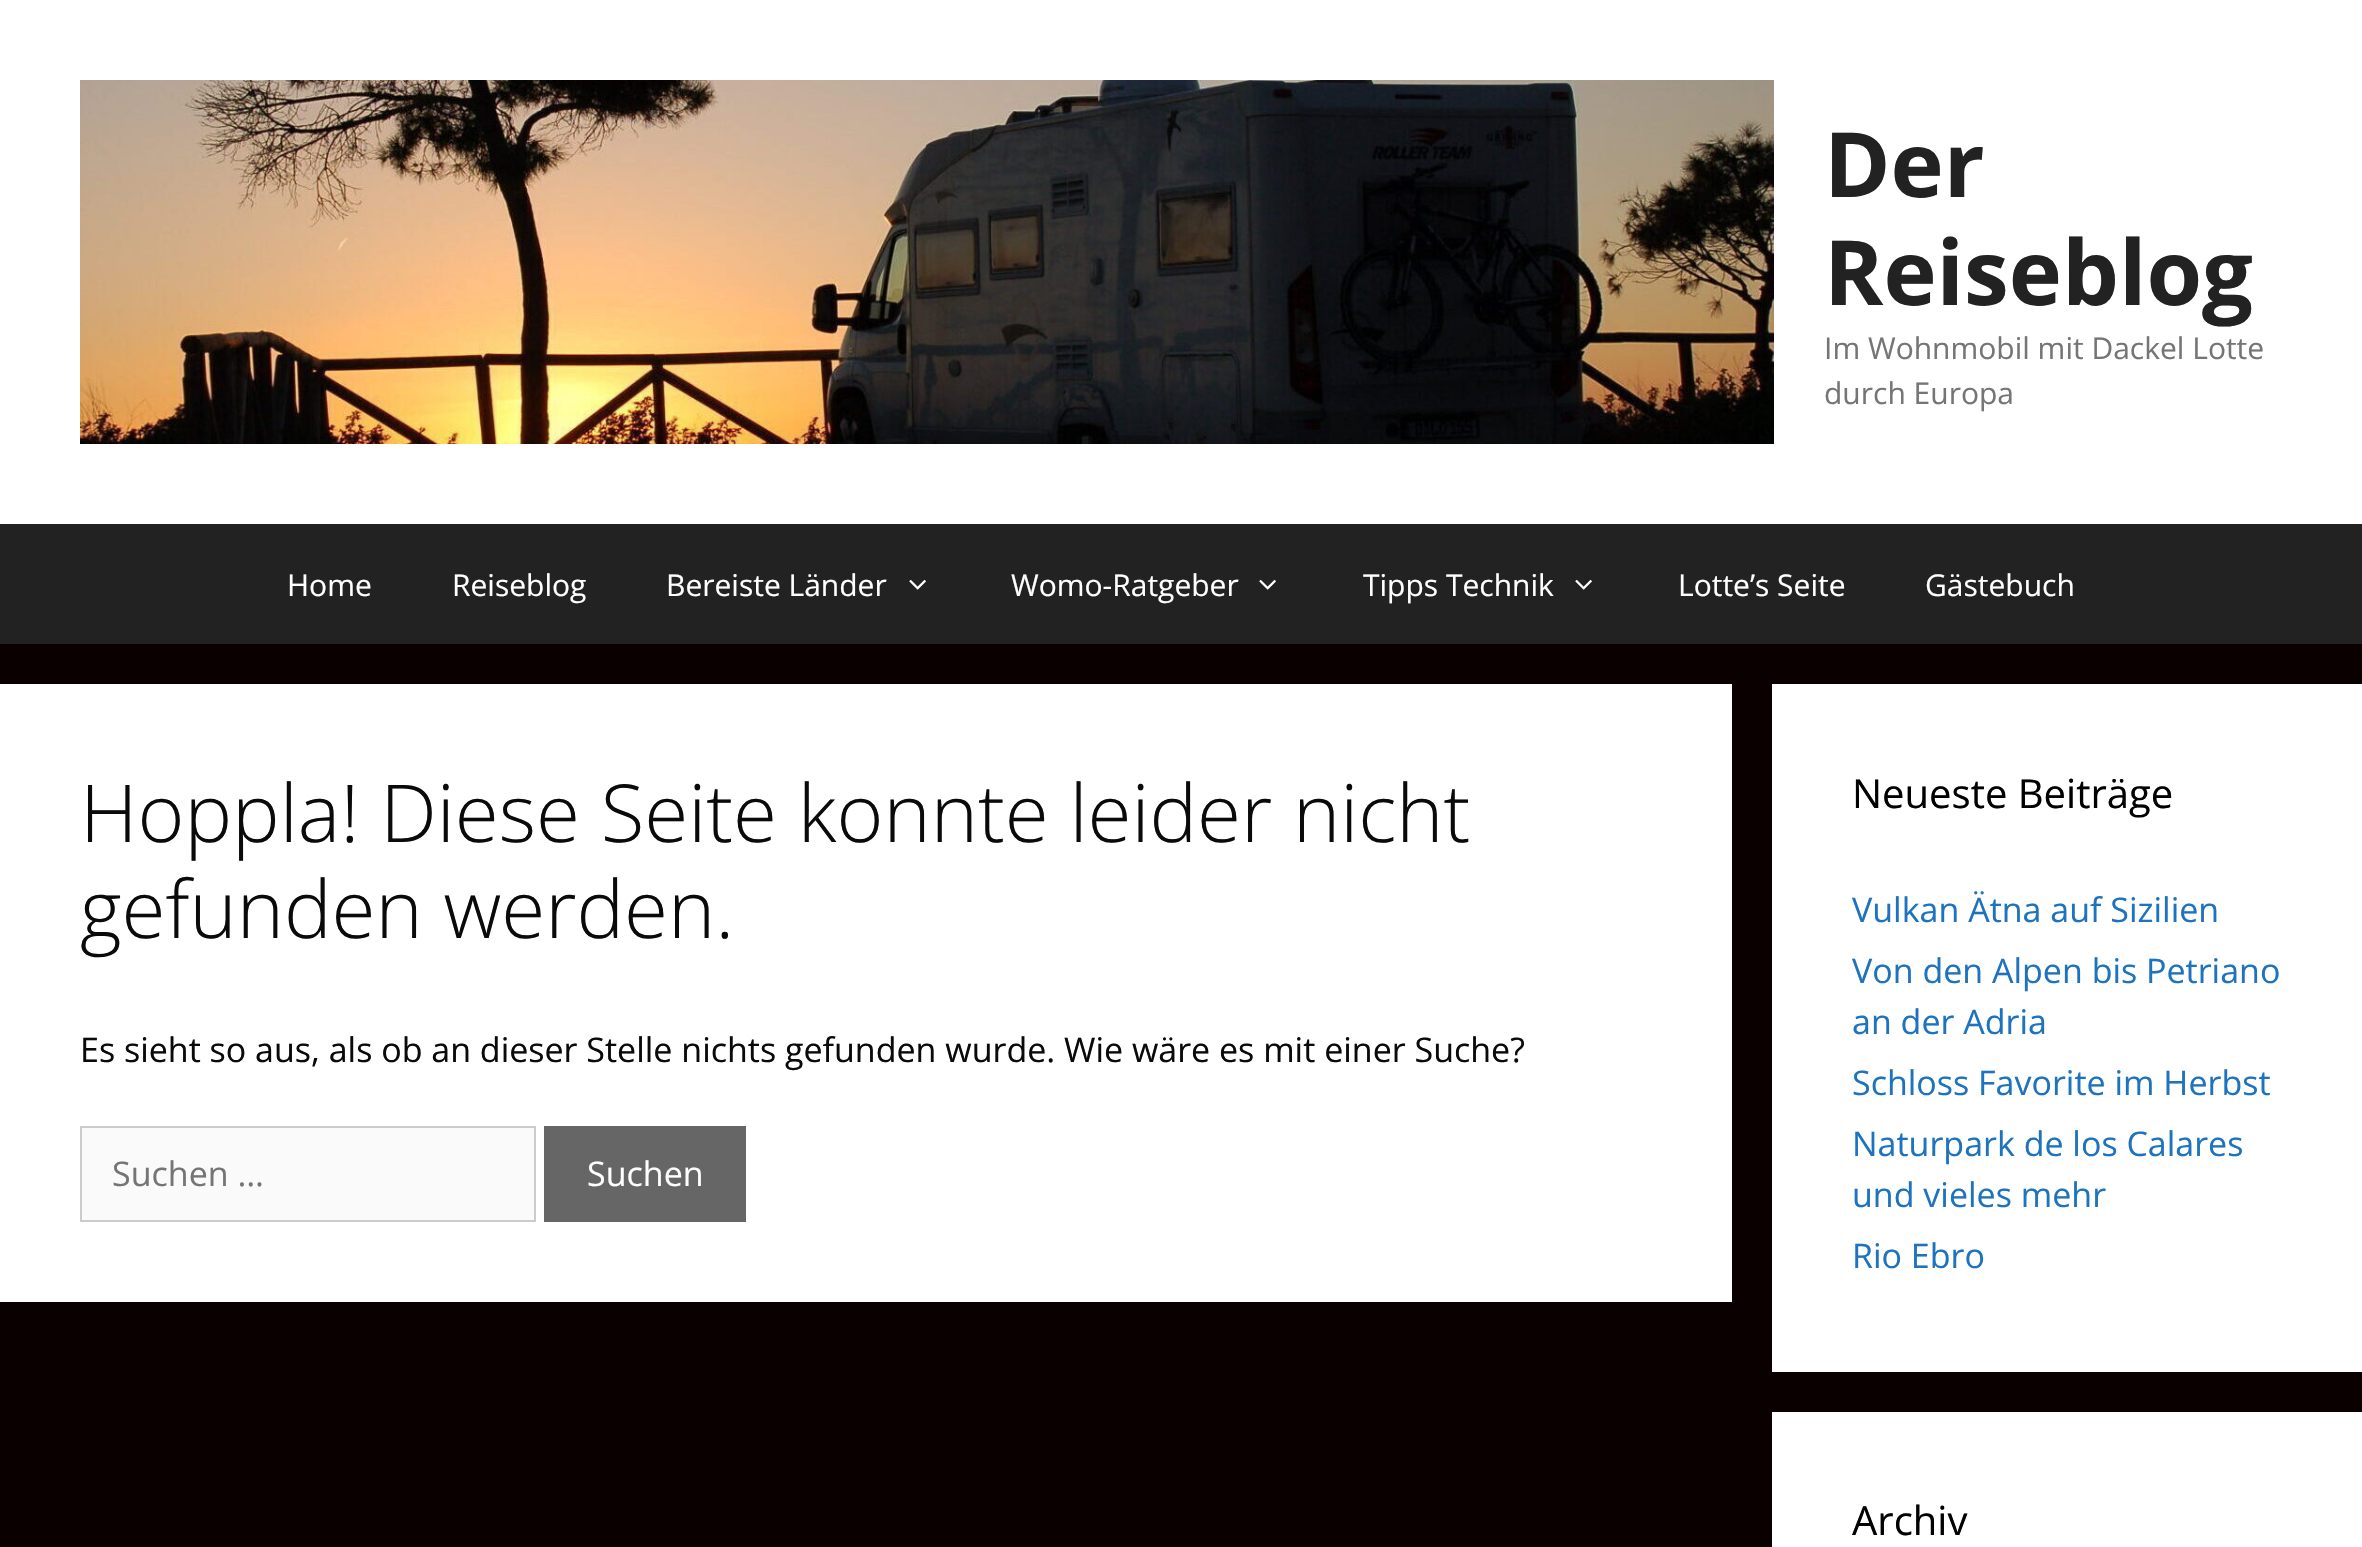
#include "include/core/SkBlurTypes.h"
#include "include/core/SkCanvas.h"
#include "include/core/SkData.h"
#include "include/core/SkFont.h"
#include "include/core/SkFontMgr.h"
#include "include/core/SkImage.h"
#include "include/core/SkMaskFilter.h"
#include "include/core/SkPaint.h"
#include "include/core/SkPathBuilder.h"
#include "include/core/SkTextBlob.h"
#include "include/effects/SkDashPathEffect.h"
#include "include/effects/SkGradientShader.h"
#include "include/utils/SkParsePath.h"

extern sk_sp<SkFontMgr> fontMgr;

static SkFont font(const char* family, int weight, float size, bool italic = false) {
    SkFontStyle style(weight, SkFontStyle::kNormal_Width,
        italic ? SkFontStyle::kItalic_Slant : SkFontStyle::kUpright_Slant);
    SkFont result(fontMgr->matchFamilyStyle(family, style), size);
    result.setSubpixel(true);
    return result;
}

static void drawLabel(SkCanvas* canvas, const char* s, float x, float y, const SkFont& font, SkColor color) {
    SkPaint ink(SkColor4f::FromColor(color));
    ink.setAntiAlias(true);
    canvas->drawString(s, x, y, font, ink);
}

static void fillRect(SkCanvas* canvas, float x, float y, float w, float h, SkColor color) {
    SkPaint ink(SkColor4f::FromColor(color));
    ink.setAntiAlias(true);
    canvas->drawRect(SkRect::MakeXYWH(x, y, w, h), ink);
}

static void drawPhoto(SkCanvas* canvas, const char* path, float x, float y, float w, float h) {
    auto image = SkImages::DeferredFromEncodedData(SkData::MakeFromFileName(path));
    canvas->drawImageRect(image, SkRect::MakeXYWH(x, y, w, h), SkSamplingOptions());
}

void draw(SkCanvas* canvas) {
    SkPaint paint;
    paint.setAntiAlias(true);
    canvas->clear(0xFF0A0000);
    fillRect(canvas, 0, 0, 2362, 524, 0xFFFFFFFF);
    drawPhoto(canvas, "assets/img1.png", 80, 80, 1694, 364);
    SkFont font1 = font("Open Sans", 700, 90);
    drawLabel(canvas, "Der", 1824, 197, font1, 0xFF222222);
    drawLabel(canvas, "Reiseblog", 1824, 305, font1, 0xFF222222);
    SkFont font2 = font("Open Sans", 400, 30);
    drawLabel(canvas, "Im Wohnmobil mit Dackel Lotte", 1824, 359, font2, 0xFF757575);
    drawLabel(canvas, "durch Europa", 1824, 404, font2, 0xFF757575);
    fillRect(canvas, 0, 524, 2362, 120, 0xFF222222);
    drawLabel(canvas, "Home", 287, 596, font2, 0xFFFFFFFF);
    drawLabel(canvas, "Reiseblog", 452, 596, font2, 0xFFFFFFFF);
    drawLabel(canvas, "Bereiste Länder", 666, 596, font2, 0xFFFFFFFF);
    drawPhoto(canvas, "assets/img2.png", 909, 579, 17, 11);
    drawLabel(canvas, "Womo-Ratgeber", 1011, 596, font2, 0xFFFFFFFF);
    drawPhoto(canvas, "assets/img2.png", 1259, 579, 17, 11);
    drawLabel(canvas, "Tipps Technik", 1363, 596, font2, 0xFFFFFFFF);
    drawPhoto(canvas, "assets/img2.png", 1575, 579, 17, 11);
    drawLabel(canvas, "Lotte’s Seite", 1678, 596, font2, 0xFFFFFFFF);
    drawLabel(canvas, "Gästebuch", 1925, 596, font2, 0xFFFFFFFF);
    fillRect(canvas, 0, 684, 1732, 618, 0xFFFFFFFF);
    SkFont font3 = font("Open Sans", 300, 80);
    drawLabel(canvas, "Hoppla! Diese Seite konnte leider nicht", 80, 842, font3, 0xFF0A0A0A);
    drawLabel(canvas, "gefunden werden.", 80, 938, font3, 0xFF0A0A0A);
    SkFont font4 = font("Open Sans", 400, 34);
    drawLabel(canvas, "Es sieht so aus, als ob an dieser Stelle nichts gefunden wurde. Wie wäre es mit einer Suche?", 80, 1062, font4, 0xFF0A0A0A);
    paint.setColor(0xFFFAFAFA);
    canvas->drawRect(SkRect::MakeXYWH(81, 1127, 454, 94), paint);
    paint.setStroke(true);
    paint.setStrokeWidth(2);
    paint.setColor(0xFFCCCCCC);
    canvas->drawRect(SkRect::MakeXYWH(81, 1127, 454, 94), paint);
    drawLabel(canvas, "Suchen …", 112, 1186, font4, 0xFF757575);
    fillRect(canvas, 544, 1126, 202, 96, 0xFF666666);
    drawLabel(canvas, "Suchen", 587, 1186, font4, 0xFFFFFFFF);
    fillRect(canvas, 1772, 684, 590, 688, 0xFFFFFFFF);
    SkFont font5 = font("Open Sans", 400, 40);
    drawLabel(canvas, "Neueste Beiträge", 1852, 808, font5, 0xFF000000);
    drawLabel(canvas, "Vulkan Ätna auf Sizilien", 1852, 922, font4, 0xFF1E73BE);
    drawLabel(canvas, "Von den Alpen bis Petriano", 1852, 983, font4, 0xFF1E73BE);
    drawLabel(canvas, "an der Adria", 1852, 1034, font4, 0xFF1E73BE);
    drawLabel(canvas, "Schloss Favorite im Herbst", 1852, 1095, font4, 0xFF1E73BE);
    drawLabel(canvas, "Naturpark de los Calares", 1852, 1156, font4, 0xFF1E73BE);
    drawLabel(canvas, "und vieles mehr", 1852, 1207, font4, 0xFF1E73BE);
    drawLabel(canvas, "Rio Ebro", 1852, 1268, font4, 0xFF1E73BE);
    fillRect(canvas, 1772, 1412, 590, 135, 0xFFFFFFFF);
    drawLabel(canvas, "Archiv", 1852, 1535, font5, 0xFF000000);
}
